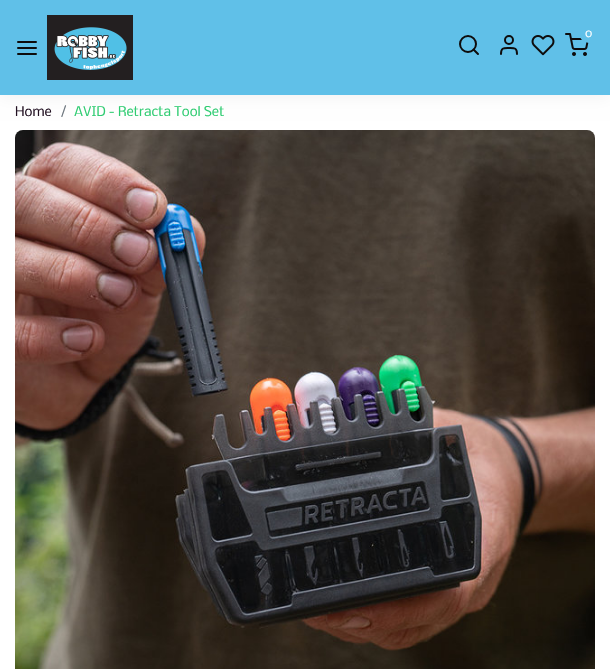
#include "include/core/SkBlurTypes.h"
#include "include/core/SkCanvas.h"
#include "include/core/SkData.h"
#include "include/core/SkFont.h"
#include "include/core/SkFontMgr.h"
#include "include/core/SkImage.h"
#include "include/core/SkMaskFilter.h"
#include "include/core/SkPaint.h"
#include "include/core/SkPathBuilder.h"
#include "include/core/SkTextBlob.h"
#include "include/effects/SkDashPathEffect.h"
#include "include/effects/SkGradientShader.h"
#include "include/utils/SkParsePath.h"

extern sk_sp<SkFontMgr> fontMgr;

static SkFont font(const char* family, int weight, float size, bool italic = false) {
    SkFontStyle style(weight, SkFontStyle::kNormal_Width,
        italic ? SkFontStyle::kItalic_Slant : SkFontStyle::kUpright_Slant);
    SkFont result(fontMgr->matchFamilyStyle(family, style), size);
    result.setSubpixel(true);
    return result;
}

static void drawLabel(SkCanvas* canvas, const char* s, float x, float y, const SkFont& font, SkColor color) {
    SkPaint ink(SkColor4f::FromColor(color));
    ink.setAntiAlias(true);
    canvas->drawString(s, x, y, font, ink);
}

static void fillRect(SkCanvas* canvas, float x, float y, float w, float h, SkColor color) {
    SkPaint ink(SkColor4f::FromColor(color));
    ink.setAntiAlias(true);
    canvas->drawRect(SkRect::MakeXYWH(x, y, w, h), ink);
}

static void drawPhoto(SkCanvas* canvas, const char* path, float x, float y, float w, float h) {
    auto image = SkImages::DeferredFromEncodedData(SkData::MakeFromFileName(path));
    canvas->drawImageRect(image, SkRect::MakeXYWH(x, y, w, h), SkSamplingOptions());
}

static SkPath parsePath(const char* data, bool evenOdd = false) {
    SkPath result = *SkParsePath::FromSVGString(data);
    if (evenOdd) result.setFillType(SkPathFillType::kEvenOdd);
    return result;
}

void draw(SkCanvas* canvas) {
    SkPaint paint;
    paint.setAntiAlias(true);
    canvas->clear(0xFFFFFFFF);
    paint.setColor(0x0D000000);
    paint.setMaskFilter(SkMaskFilter::MakeBlur(kNormal_SkBlurStyle, 8));
    canvas->drawRect(SkRect::MakeXYWH(0, 2, 610, 95), paint);
    paint.setMaskFilter(nullptr);
    fillRect(canvas, 0, 0, 610, 95, 0xFF60C0E8);
    paint.setStroke(true);
    paint.setStrokeWidth(2);
    paint.setStrokeCap(SkPaint::kRound_Cap);
    paint.setStrokeJoin(SkPaint::kRound_Join);
    paint.setColor(0xFF0D0C0C);
    canvas->drawPath(parsePath("M18 48H36M18 42H36M18 54H36"), paint);
    drawPhoto(canvas, "assets/img1.png", 47, 15, 86, 65);
    drawPhoto(canvas, "assets/img2.png", 565, 33, 24, 23);
    paint.setStroke(false);
    paint.setColor(0xFF60C0E8);
    canvas->drawCircle(589, 33, 10, paint);
    SkFont font1 = font("Nobile", 400, 11);
    drawLabel(canvas, "0", 585, 37, font1, 0xFFFFFFFF);
    paint.setStroke(true);
    paint.setStrokeCap(SkPaint::kButt_Cap);
    paint.setStrokeJoin(SkPaint::kMiter_Join);
    paint.setColor(0xFF0D0C0C);
    canvas->drawCircle(468, 44, 8, paint);
    paint.setStrokeCap(SkPaint::kRound_Cap);
    paint.setStrokeJoin(SkPaint::kRound_Join);
    canvas->drawPath(parsePath("M478 54L473.5 49.5M517 54C517 47.5 514.5 48 509 48C503.5 48 501 47.5 501 54"), paint);
    paint.setStrokeCap(SkPaint::kButt_Cap);
    paint.setStrokeJoin(SkPaint::kMiter_Join);
    canvas->drawCircle(509, 40, 4, paint);
    drawPhoto(canvas, "assets/img3.png", 531, 35, 24, 21);
    SkFont font2 = font("Nobile", 400, 12.75f);
    drawLabel(canvas, "Home", 15, 116, font2, 0xFF221122);
    drawLabel(canvas, "/", 60, 116, font2, 0xFF6C757D);
    drawLabel(canvas, "AVID - Retracta Tool Set", 74, 116, font2, 0xFF2ECC71);
    drawPhoto(canvas, "assets/img4.png", 15, 130, 580, 539);
}
